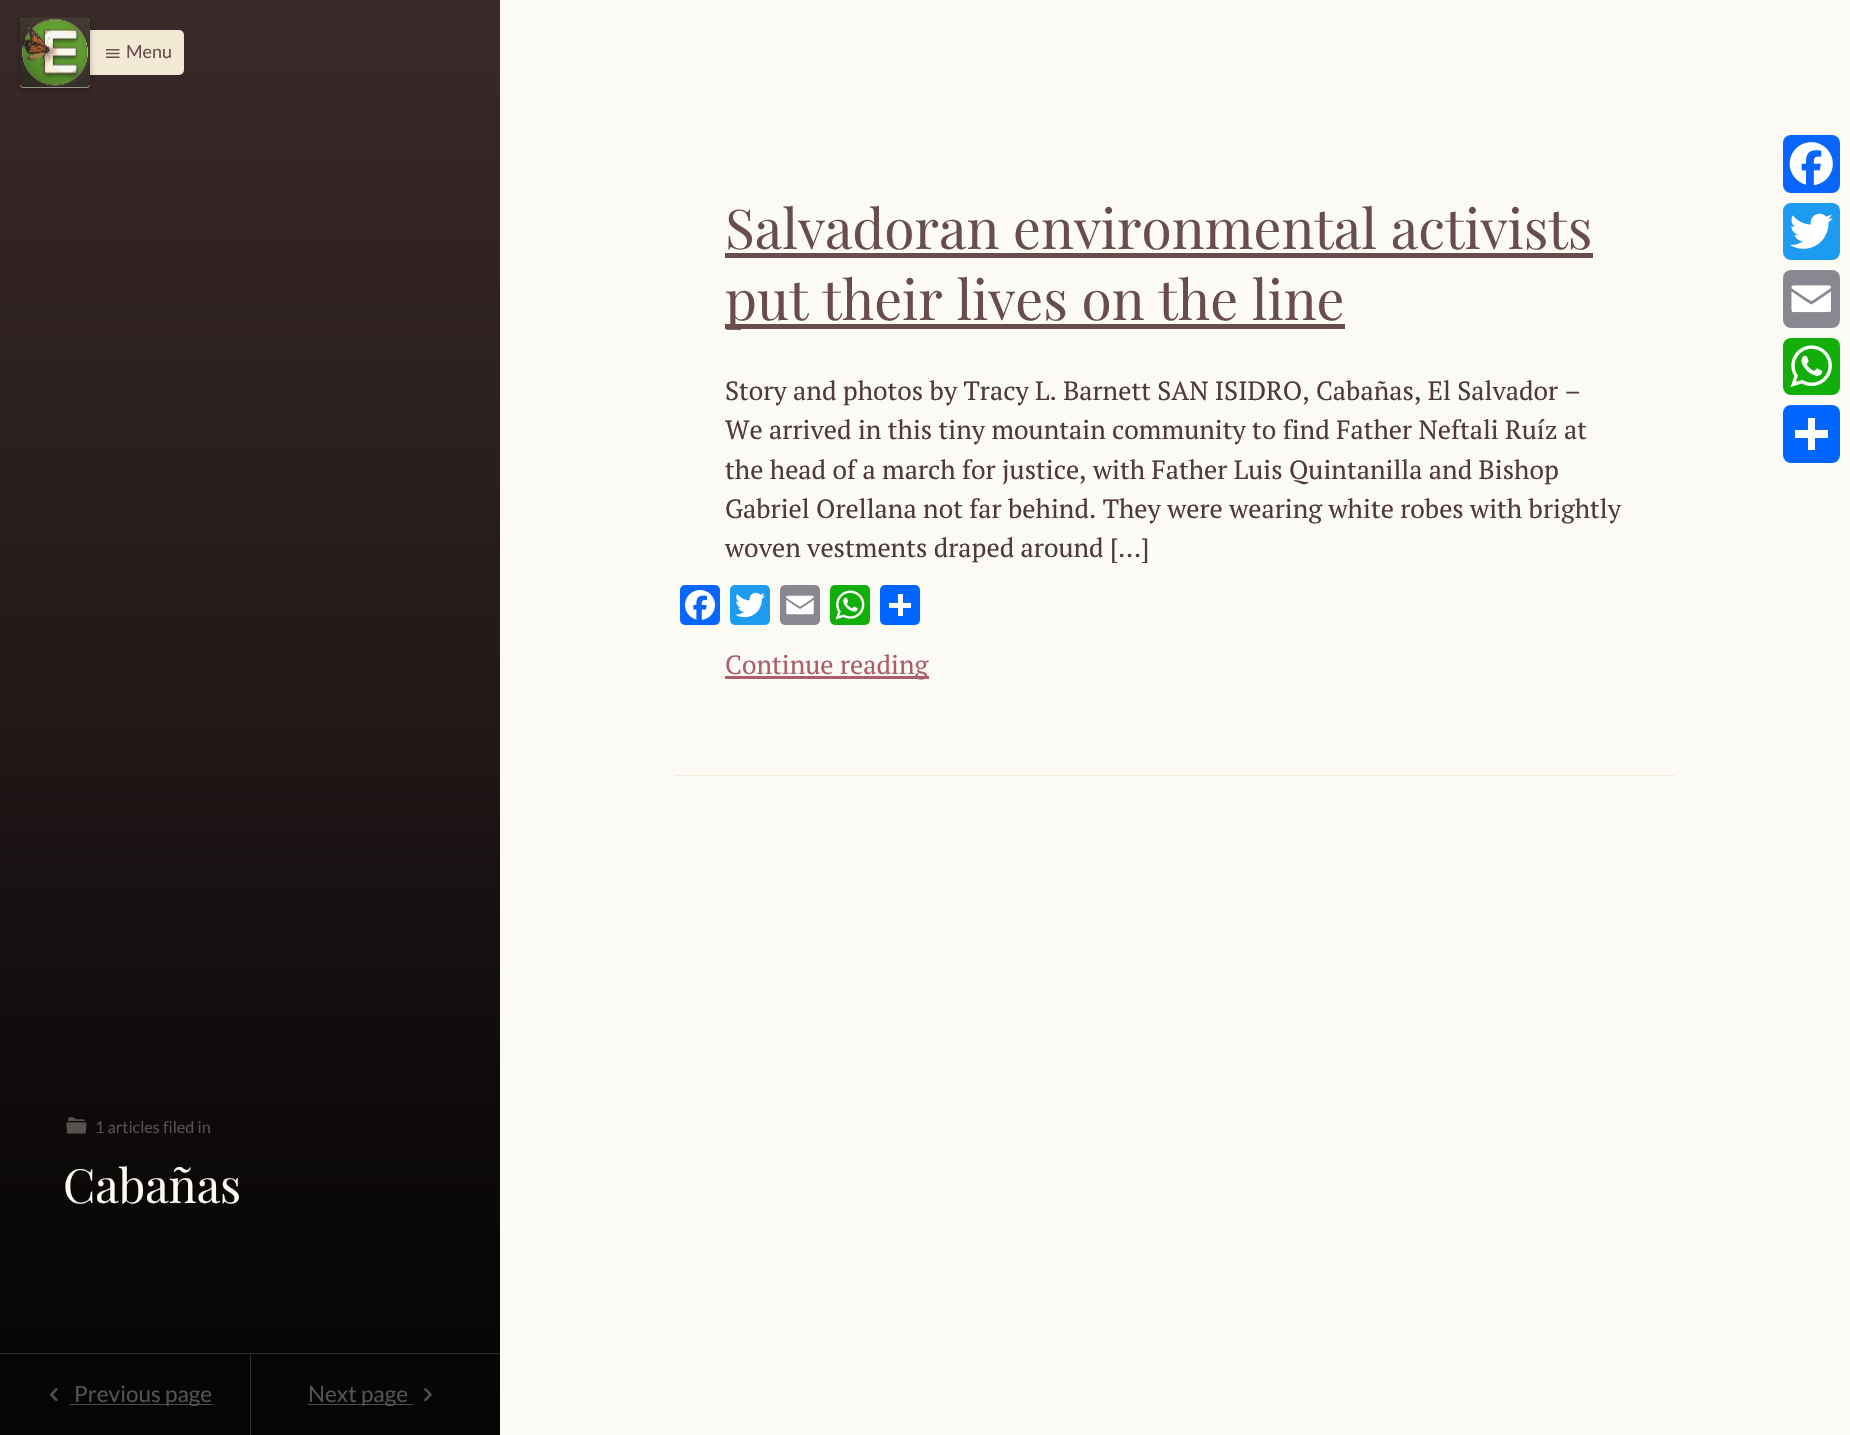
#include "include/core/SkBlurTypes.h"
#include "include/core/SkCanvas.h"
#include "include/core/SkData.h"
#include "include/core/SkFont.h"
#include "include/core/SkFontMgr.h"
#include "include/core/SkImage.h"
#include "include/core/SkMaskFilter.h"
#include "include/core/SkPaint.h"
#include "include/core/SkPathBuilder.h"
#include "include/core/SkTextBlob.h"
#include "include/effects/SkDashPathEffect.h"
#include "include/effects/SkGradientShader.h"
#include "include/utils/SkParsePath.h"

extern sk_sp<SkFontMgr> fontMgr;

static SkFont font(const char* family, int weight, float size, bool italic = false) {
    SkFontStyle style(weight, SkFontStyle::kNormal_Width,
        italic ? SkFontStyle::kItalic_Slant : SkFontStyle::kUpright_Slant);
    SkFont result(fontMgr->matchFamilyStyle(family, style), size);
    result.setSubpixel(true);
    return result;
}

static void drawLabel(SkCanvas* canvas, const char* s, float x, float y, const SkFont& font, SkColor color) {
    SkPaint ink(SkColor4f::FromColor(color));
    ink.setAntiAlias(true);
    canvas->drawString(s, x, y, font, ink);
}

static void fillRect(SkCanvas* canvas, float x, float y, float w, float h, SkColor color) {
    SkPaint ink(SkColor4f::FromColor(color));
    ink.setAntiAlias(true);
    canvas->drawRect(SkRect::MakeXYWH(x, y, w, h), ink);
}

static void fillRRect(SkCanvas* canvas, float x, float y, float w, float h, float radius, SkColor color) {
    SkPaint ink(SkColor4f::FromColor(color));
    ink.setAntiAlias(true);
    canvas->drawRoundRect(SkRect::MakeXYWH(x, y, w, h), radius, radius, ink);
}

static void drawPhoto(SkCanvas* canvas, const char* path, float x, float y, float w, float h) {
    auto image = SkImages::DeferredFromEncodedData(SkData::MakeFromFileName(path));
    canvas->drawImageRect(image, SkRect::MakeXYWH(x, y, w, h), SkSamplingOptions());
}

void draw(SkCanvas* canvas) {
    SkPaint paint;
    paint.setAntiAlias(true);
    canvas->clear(0xFFFCFAF5);
    {
        const SkColor colors[] = {0xFF483333, 0xFF281C1C};
        const float stops[] = {0.5f, 0.9f};
        const SkPoint ends[] = {{250, 0}, {250, 1435}};
        paint.setShader(SkGradientShader::MakeLinear(ends, colors, stops, 2, SkTileMode::kClamp));
        paint.setAlpha(255);
    }
    canvas->drawRect(SkRect::MakeXYWH(0, 0, 500, 1435), paint);
    {
        const SkColor colors[] = {0x33000000, 0xDE000000};
        const float stops[] = {0, 1};
        const SkPoint ends[] = {{250, 0}, {250, 1435}};
        paint.setShader(SkGradientShader::MakeLinear(ends, colors, stops, 2, SkTileMode::kClamp));
        paint.setAlpha(255);
    }
    canvas->drawRect(SkRect::MakeXYWH(0, 0, 500, 1435), paint);
    fillRRect(canvas, 79, 30, 105, 45, 5, 0xFFF3EAD6);
    paint.setShader(nullptr);
    paint.setColor(0x42000000);
    paint.setMaskFilter(SkMaskFilter::MakeBlur(kNormal_SkBlurStyle, 3));
    canvas->drawRoundRect(SkRect::MakeXYWH(20, 20, 70, 70), 4, 4, paint);
    paint.setMaskFilter(nullptr);
    fillRRect(canvas, 20, 18, 70, 70, 4, 0xFFFCFAF5);
    drawPhoto(canvas, "assets/img1.png", 20, 17, 70, 71);
    drawPhoto(canvas, "assets/img2.png", 106, 49, 14, 9);
    SkFont font1 = font("Lato", 400, 18);
    drawLabel(canvas, "Menu", 126, 58, font1, 0xFF694C4C);
    SkFont font2 = font("Playfair Display", 400, 55.1f);
    drawLabel(canvas, "Salvadoran environmental activists", 725, 249, font2, 0xFF694C4C);
    fillRect(canvas, 725, 253, 868, 5, 0xFF694C4C);
    fillRect(canvas, 725, 324, 620, 5, 0xFF694C4C);
    drawLabel(canvas, "put their lives on the line", 725, 320, font2, 0xFF694C4C);
    SkFont font3 = font("PT Serif", 400, 26.25f);
    drawLabel(canvas, "Story and photos by Tracy L. Barnett SAN ISIDRO, Cabañas, El Salvador –", 725, 400, font3, 0xFF4F3939);
    drawLabel(canvas, "We arrived in this tiny mountain community to find Father Neftali Ruíz at", 725, 439, font3, 0xFF4F3939);
    drawLabel(canvas, "the head of a march for justice, with Father Luis Quintanilla and Bishop", 725, 479, font3, 0xFF4F3939);
    drawLabel(canvas, "Gabriel Orellana not far behind. They were wearing white robes with brightly", 725, 518, font3, 0xFF4F3939);
    drawLabel(canvas, "woven vestments draped around […]", 725, 557, font3, 0xFF4F3939);
    fillRRect(canvas, 680, 585, 40, 40, 5, 0xFF0866FF);
    drawPhoto(canvas, "assets/img3.png", 685, 590, 30, 30);
    fillRRect(canvas, 730, 585, 40, 40, 5, 0xFF1D9BF0);
    drawPhoto(canvas, "assets/img4.png", 735, 592, 30, 26);
    fillRRect(canvas, 780, 585, 40, 40, 5, 0xFF888990);
    drawPhoto(canvas, "assets/img5.png", 786, 595, 28, 20);
    fillRRect(canvas, 830, 585, 40, 40, 5, 0xFF12AF0A);
    drawPhoto(canvas, "assets/img6.png", 835, 590, 30, 30);
    fillRRect(canvas, 880, 585, 40, 40, 5, 0xFF0166FF);
    fillRect(canvas, 898, 594, 5, 22, 0xFFFFFFFF);
    fillRect(canvas, 889, 603, 22, 5, 0xFFFFFFFF);
    fillRect(canvas, 725, 676, 204, 3, 0xFFAB5D6A);
    drawLabel(canvas, "Continue reading", 725, 674, font3, 0xFFAB5D6A);
    fillRect(canvas, 675, 775, 1000, 1, 0xFFF3EAD6);
    drawPhoto(canvas, "assets/img7.png", 66, 1117, 21, 17);
    SkFont font4 = font("Lato", 400, 16.25f);
    drawLabel(canvas, "1 articles filed in", 95, 1133, font4, 0xFF555250);
    SkFont font5 = font("Playfair Display", 400, 47);
    drawLabel(canvas, "Cabañas", 63, 1203, font5, 0xFFFCFAF5);
    fillRect(canvas, 0, 1353, 500, 1, 0xFF2C2A2A);
    drawPhoto(canvas, "assets/img8.png", 50, 1388, 8, 14);
    fillRect(canvas, 70, 1404, 143, 1, 0xFF504E4C);
    SkFont font6 = font("Lato", 400, 22.5f);
    drawLabel(canvas, "Previous page", 74, 1402, font6, 0xFF555250);
    fillRect(canvas, 250, 1354, 1, 81, 0xFF2B2A2A);
    fillRect(canvas, 308, 1404, 105, 1, 0xFF504E4C);
    drawLabel(canvas, "Next page", 308, 1402, font6, 0xFF555250);
    drawPhoto(canvas, "assets/img9.png", 424, 1388, 8, 14);
    fillRRect(canvas, 1783, 135, 57, 58, 8, 0xFF0866FF);
    drawPhoto(canvas, "assets/img10.png", 1789, 142, 44, 44);
    fillRRect(canvas, 1783, 203, 57, 57, 8, 0xFF1D9BF0);
    drawPhoto(canvas, "assets/img11.png", 1789, 213, 44, 36);
    fillRRect(canvas, 1783, 270, 57, 58, 8, 0xFF888990);
    drawPhoto(canvas, "assets/img12.png", 1791, 285, 40, 28);
    fillRRect(canvas, 1783, 338, 57, 57, 8, 0xFF12AF0A);
    drawPhoto(canvas, "assets/img13.png", 1790, 345, 42, 42);
    fillRRect(canvas, 1783, 405, 57, 58, 8, 0xFF0166FF);
    fillRect(canvas, 1808, 418, 7, 32, 0xFFFFFFFF);
    fillRect(canvas, 1795, 430, 33, 8, 0xFFFFFFFF);
}
